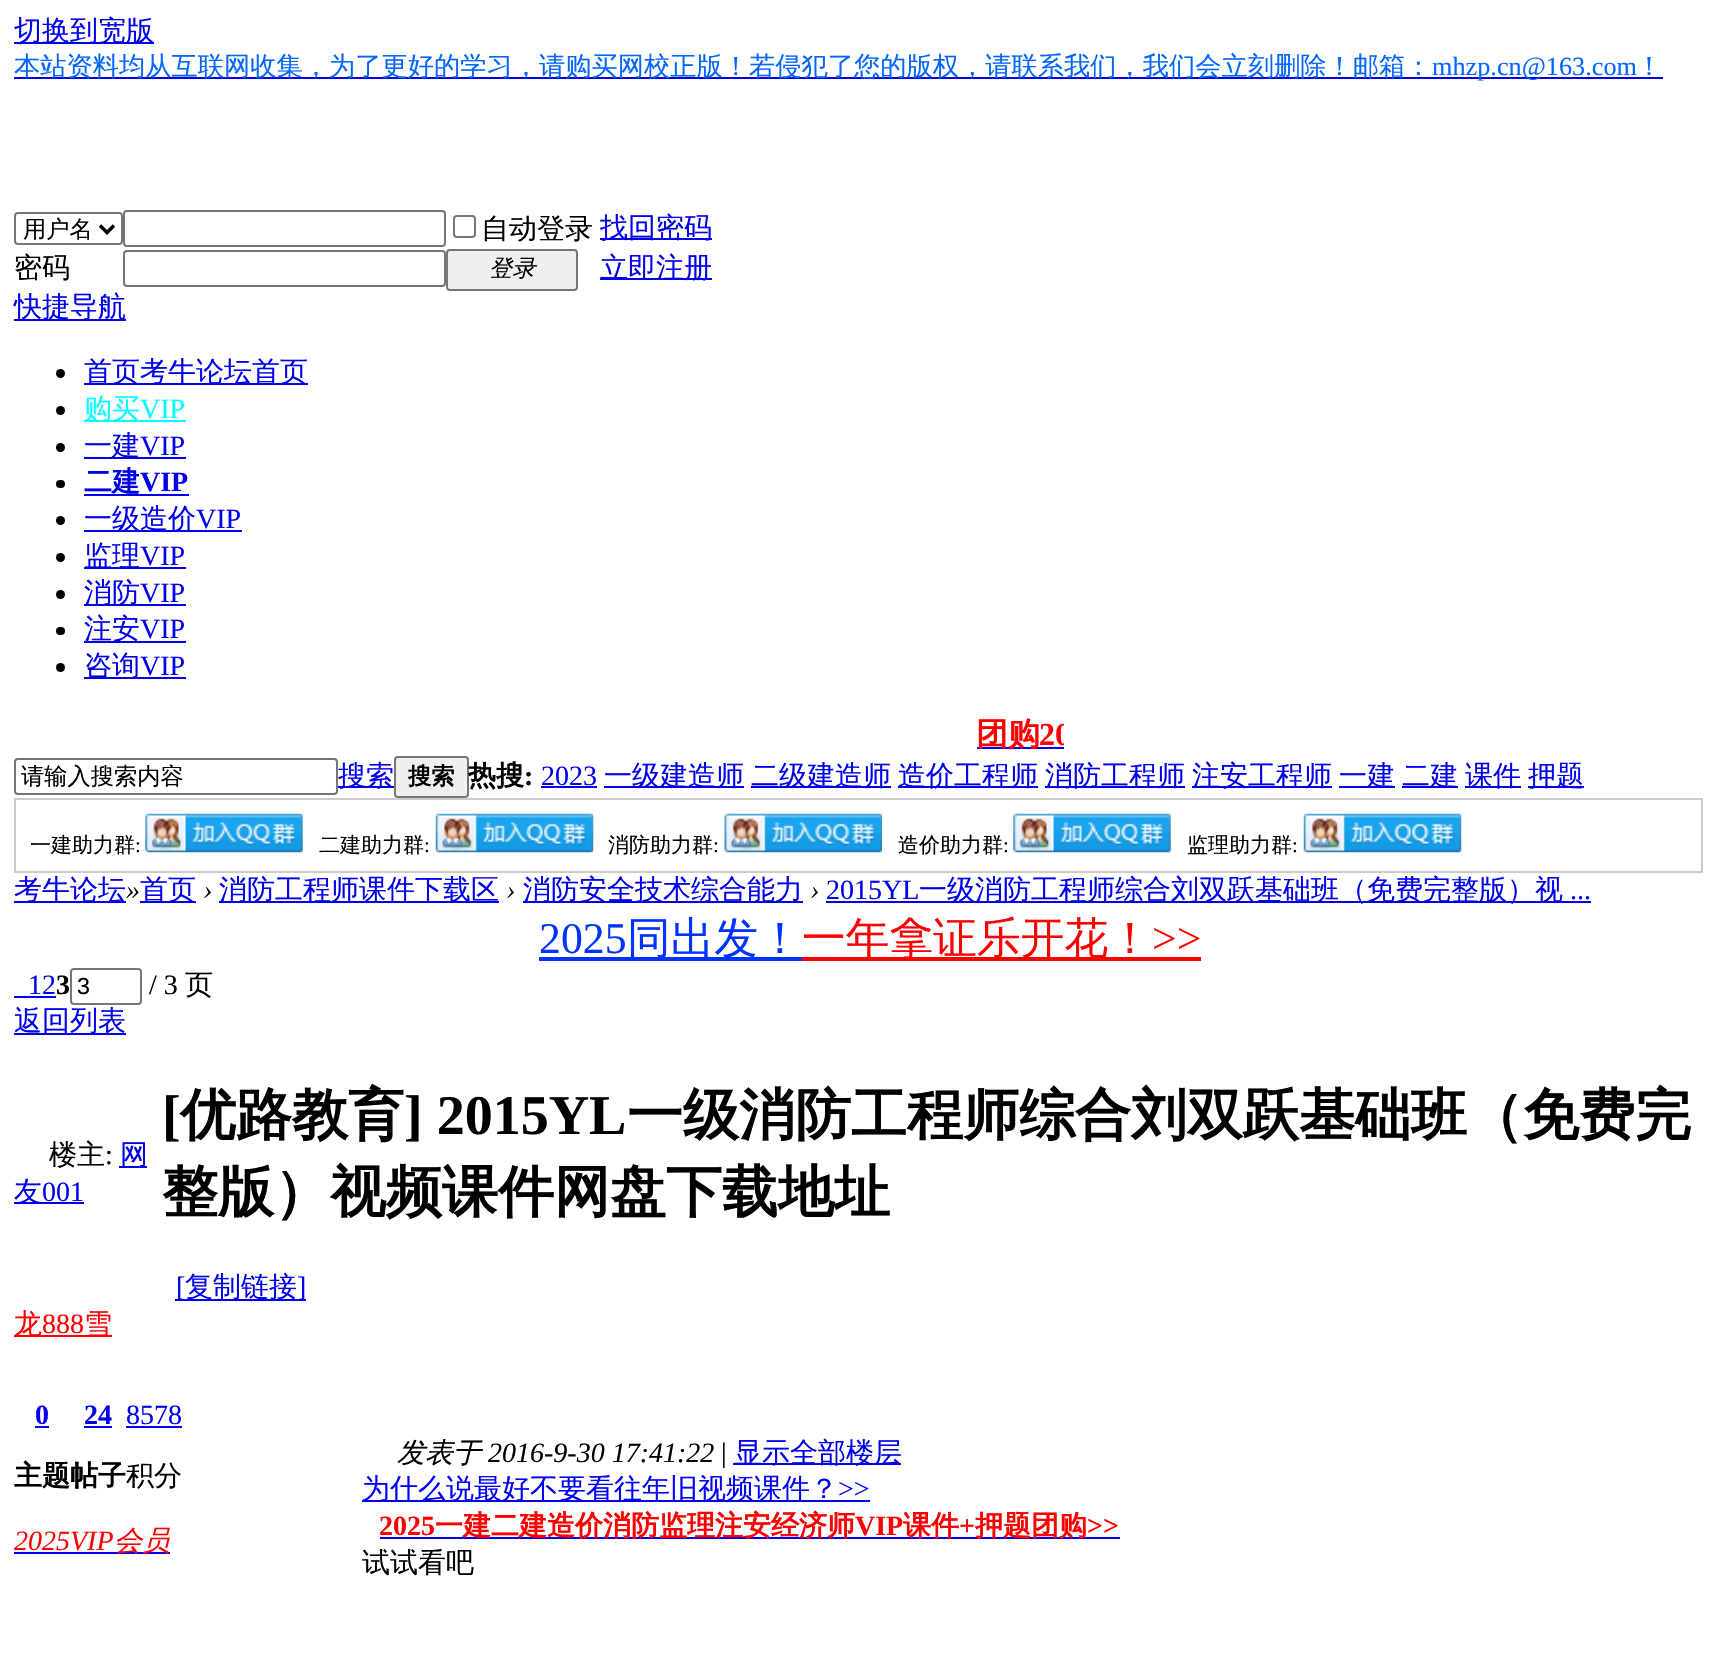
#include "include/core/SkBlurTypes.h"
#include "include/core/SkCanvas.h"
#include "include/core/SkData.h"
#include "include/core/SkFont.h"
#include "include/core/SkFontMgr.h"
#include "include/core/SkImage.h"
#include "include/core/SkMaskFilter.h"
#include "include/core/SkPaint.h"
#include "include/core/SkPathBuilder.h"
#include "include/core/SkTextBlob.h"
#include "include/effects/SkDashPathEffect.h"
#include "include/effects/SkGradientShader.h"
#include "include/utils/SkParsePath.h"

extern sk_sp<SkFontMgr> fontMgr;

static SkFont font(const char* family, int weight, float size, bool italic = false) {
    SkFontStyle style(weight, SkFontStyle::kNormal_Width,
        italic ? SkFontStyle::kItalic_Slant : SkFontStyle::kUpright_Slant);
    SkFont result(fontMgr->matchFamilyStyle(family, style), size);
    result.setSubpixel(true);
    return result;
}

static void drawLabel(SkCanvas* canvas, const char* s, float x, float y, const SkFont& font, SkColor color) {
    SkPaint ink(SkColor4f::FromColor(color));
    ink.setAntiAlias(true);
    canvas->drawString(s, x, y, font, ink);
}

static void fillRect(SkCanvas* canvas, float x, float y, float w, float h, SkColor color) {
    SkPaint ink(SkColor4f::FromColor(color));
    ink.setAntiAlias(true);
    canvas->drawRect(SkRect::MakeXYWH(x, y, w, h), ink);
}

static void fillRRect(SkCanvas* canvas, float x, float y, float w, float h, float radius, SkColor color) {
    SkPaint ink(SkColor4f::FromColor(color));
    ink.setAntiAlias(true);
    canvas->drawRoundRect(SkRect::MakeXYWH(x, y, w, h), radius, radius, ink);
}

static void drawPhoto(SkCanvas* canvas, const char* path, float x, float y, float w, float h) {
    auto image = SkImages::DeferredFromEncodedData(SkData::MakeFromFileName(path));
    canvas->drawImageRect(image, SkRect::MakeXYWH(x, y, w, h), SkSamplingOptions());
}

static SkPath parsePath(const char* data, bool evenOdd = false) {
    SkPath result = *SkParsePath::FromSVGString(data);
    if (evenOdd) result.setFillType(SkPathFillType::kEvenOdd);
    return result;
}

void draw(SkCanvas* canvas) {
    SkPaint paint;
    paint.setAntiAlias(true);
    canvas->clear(0xFFFFFFFF);
    fillRect(canvas, 14, 42, 140, 2, 0xFF0000EE);
    SkFont font1 = font("WenQuanYi Zen Hei", 500, 28);
    drawLabel(canvas, "切换到宽版", 14, 40, font1, 0xFF0000EE);
    fillRect(canvas, 14, 77, 1649, 2, 0xFF0000EE);
    SkFont font2 = font("WenQuanYi Zen Hei", 500, 26.25f);
    drawLabel(canvas, "本站资料均从互联网收集，为了更好的学习，请购买网校正版！若侵犯了您的版权，请联系我们，我们会立刻删除！邮箱：", 14, 75, font2, 0xFF0066FF);
    SkFont font3 = font("Liberation Serif", 400, 26.25f);
    drawLabel(canvas, "mhzp.cn@163.com", 1432, 75, font3, 0xFF0066FF);
    drawLabel(canvas, "！", 1636, 75, font2, 0xFF0066FF);
    paint.setStroke(true);
    paint.setStrokeWidth(2);
    paint.setColor(0xFF767676);
    canvas->drawRoundRect(SkRect::MakeXYWH(15, 213, 107, 31), 3, 3, paint);
    paint.setStrokeWidth(3.5f);
    paint.setColor(0xFF000000);
    canvas->drawPath(parsePath("M100 225.5L107 232.5L114 225.5"), paint);
    SkFont font4 = font("WenQuanYi Zen Hei", 500, 23.25f);
    drawLabel(canvas, "用户名", 23, 237, font4, 0xFF000000);
    paint.setStrokeWidth(2);
    paint.setColor(0xFF767676);
    canvas->drawRoundRect(SkRect::MakeXYWH(124, 211, 321, 35), 3, 3, paint);
    canvas->drawRoundRect(SkRect::MakeXYWH(454, 216, 21, 21), 3, 3, paint);
    drawLabel(canvas, "自动登录", 481, 238, font1, 0xFF000000);
    fillRect(canvas, 600, 238, 112, 2, 0xFF0000EE);
    drawLabel(canvas, "找回密码", 600, 237, font1, 0xFF0000EE);
    drawLabel(canvas, "密码", 14, 277, font1, 0xFF000000);
    canvas->drawRoundRect(SkRect::MakeXYWH(124, 251, 321, 35), 3, 3, paint);
    paint.setStroke(false);
    paint.setColor(0xFFEFEFEF);
    canvas->drawRoundRect(SkRect::MakeXYWH(447, 250, 130, 40), 3, 3, paint);
    paint.setStroke(true);
    paint.setColor(0xFF767676);
    canvas->drawRoundRect(SkRect::MakeXYWH(447, 250, 130, 40), 3, 3, paint);
    SkFont font5 = font("WenQuanYi Zen Hei", 500, 23.25f, true);
    drawLabel(canvas, "登录", 489, 276, font5, 0xFF000000);
    fillRect(canvas, 600, 278, 112, 2, 0xFF0000EE);
    drawLabel(canvas, "立即注册", 600, 277, font1, 0xFF0000EE);
    fillRect(canvas, 14, 319, 112, 2, 0xFF0000EE);
    drawLabel(canvas, "快捷导航", 14, 316, font1, 0xFF0000EE);
    paint.setStroke(false);
    paint.setColor(0xFF000000);
    canvas->drawCircle(60.5f, 373.5f, 4.5f, paint);
    fillRect(canvas, 84, 383, 224, 2, 0xFF0000EE);
    drawLabel(canvas, "首页考牛论坛首页", 84, 381, font1, 0xFF0000EE);
    canvas->drawCircle(60.5f, 410.5f, 4.5f, paint);
    fillRect(canvas, 84, 420, 102, 2, 0xFF00FFFF);
    drawLabel(canvas, "购买", 84, 418, font1, 0xFF00FFFF);
    SkFont font6 = font("Liberation Serif", 400, 28);
    drawLabel(canvas, "VIP", 140, 418, font6, 0xFF00FFFF);
    canvas->drawCircle(60.5f, 447.5f, 4.5f, paint);
    fillRect(canvas, 84, 457, 102, 2, 0xFF0000EE);
    drawLabel(canvas, "一建", 84, 455, font1, 0xFF0000EE);
    drawLabel(canvas, "VIP", 140, 455, font6, 0xFF0000EE);
    fillRRect(canvas, 56, 480, 9, 8, 4, 0xFF000000);
    SkFont font7 = font("WenQuanYi Zen Hei", 700, 28);
    drawLabel(canvas, "二建", 84, 491, font7, 0xFF0000EE);
    SkFont font8 = font("Liberation Serif", 700, 28);
    drawLabel(canvas, "VIP", 140, 491, font8, 0xFF0000EE);
    fillRect(canvas, 84, 494, 105, 2, 0xFF0000EE);
    canvas->drawCircle(60.5f, 520.5f, 4.5f, paint);
    fillRect(canvas, 84, 530, 158, 2, 0xFF0000EE);
    drawLabel(canvas, "一级造价", 84, 528, font1, 0xFF0000EE);
    drawLabel(canvas, "VIP", 196, 528, font6, 0xFF0000EE);
    canvas->drawCircle(60.5f, 557.5f, 4.5f, paint);
    fillRect(canvas, 84, 567, 102, 2, 0xFF0000EE);
    drawLabel(canvas, "监理", 84, 565, font1, 0xFF0000EE);
    drawLabel(canvas, "VIP", 140, 565, font6, 0xFF0000EE);
    canvas->drawCircle(60.5f, 594.5f, 4.5f, paint);
    fillRect(canvas, 84, 604, 102, 2, 0xFF0000EE);
    drawLabel(canvas, "消防", 84, 602, font1, 0xFF0000EE);
    drawLabel(canvas, "VIP", 140, 602, font6, 0xFF0000EE);
    fillRRect(canvas, 56, 627, 9, 8, 4, 0xFF000000);
    fillRect(canvas, 84, 641, 102, 2, 0xFF0000EE);
    drawLabel(canvas, "注安", 84, 638, font1, 0xFF0000EE);
    drawLabel(canvas, "VIP", 140, 638, font6, 0xFF0000EE);
    canvas->drawCircle(60.5f, 667.5f, 4.5f, paint);
    fillRect(canvas, 84, 677, 102, 2, 0xFF0000EE);
    drawLabel(canvas, "咨询", 84, 675, font1, 0xFF0000EE);
    drawLabel(canvas, "VIP", 140, 675, font6, 0xFF0000EE);
    fillRect(canvas, 977, 747, 87, 2, 0xFF0000EE);
    SkFont font9 = font("WenQuanYi Zen Hei", 700, 32);
    drawLabel(canvas, "团购", 976, 745, font9, 0xFFFF0000);
    canvas->save();
    canvas->clipRect(SkRect::MakeXYWH(14, 714, 1050, 42));
    SkFont font10 = font("Liberation Serif", 700, 32);
    drawLabel(canvas, "20", 1039, 745, font10, 0xFFFF0000);
    canvas->restore();
    paint.setStroke(true);
    paint.setColor(0xFF767676);
    canvas->drawRoundRect(SkRect::MakeXYWH(15, 759, 322, 35), 3, 3, paint);
    drawLabel(canvas, "请输入搜索内容", 21, 784, font4, 0xFF000000);
    fillRect(canvas, 338, 786, 56, 2, 0xFF0000EE);
    drawLabel(canvas, "搜索", 338, 785, font1, 0xFF0000EE);
    paint.setStroke(false);
    paint.setColor(0xFFEFEFEF);
    canvas->drawRoundRect(SkRect::MakeXYWH(395, 757, 73, 40), 3, 3, paint);
    paint.setStroke(true);
    paint.setColor(0xFF767676);
    canvas->drawRoundRect(SkRect::MakeXYWH(395, 757, 73, 40), 3, 3, paint);
    SkFont font11 = font("WenQuanYi Zen Hei", 700, 23.25f);
    drawLabel(canvas, "搜索", 408, 784, font11, 0xFF000000);
    drawLabel(canvas, "热搜", 468, 785, font7, 0xFF000000);
    drawLabel(canvas, ":", 524, 785, font8, 0xFF000000);
    drawLabel(canvas, "2023", 541, 785, font6, 0xFF0000EE);
    fillRect(canvas, 541, 786, 56, 2, 0xFF0000EE);
    fillRect(canvas, 604, 786, 140, 2, 0xFF0000EE);
    drawLabel(canvas, "一级建造师", 604, 785, font1, 0xFF0000EE);
    fillRect(canvas, 751, 786, 140, 2, 0xFF0000EE);
    drawLabel(canvas, "二级建造师", 751, 785, font1, 0xFF0000EE);
    fillRect(canvas, 898, 786, 140, 2, 0xFF0000EE);
    drawLabel(canvas, "造价工程师", 898, 785, font1, 0xFF0000EE);
    fillRect(canvas, 1045, 786, 140, 2, 0xFF0000EE);
    drawLabel(canvas, "消防工程师", 1045, 785, font1, 0xFF0000EE);
    fillRect(canvas, 1192, 786, 140, 2, 0xFF0000EE);
    drawLabel(canvas, "注安工程师", 1192, 785, font1, 0xFF0000EE);
    fillRect(canvas, 1339, 786, 56, 2, 0xFF0000EE);
    drawLabel(canvas, "一建", 1339, 785, font1, 0xFF0000EE);
    fillRect(canvas, 1402, 786, 56, 2, 0xFF0000EE);
    drawLabel(canvas, "二建", 1402, 785, font1, 0xFF0000EE);
    fillRect(canvas, 1465, 786, 56, 2, 0xFF0000EE);
    drawLabel(canvas, "课件", 1465, 785, font1, 0xFF0000EE);
    fillRect(canvas, 1528, 786, 56, 2, 0xFF0000EE);
    drawLabel(canvas, "押题", 1528, 785, font1, 0xFF0000EE);
    paint.setColor(0xFFCCCCCC);
    canvas->drawRect(SkRect::MakeXYWH(15, 799, 1687, 73), paint);
    SkFont font12 = font("WenQuanYi Zen Hei", 500, 21);
    drawLabel(canvas, "一建助力群", 30, 852, font12, 0xFF000000);
    SkFont font13 = font("Liberation Serif", 400, 21);
    drawLabel(canvas, ":", 135, 852, font13, 0xFF000000);
    drawPhoto(canvas, "assets/img1.png", 145, 813, 158, 40);
    drawLabel(canvas, "二建助力群", 319, 852, font12, 0xFF000000);
    drawLabel(canvas, ":", 424, 852, font13, 0xFF000000);
    drawPhoto(canvas, "assets/img2.png", 435, 813, 159, 40);
    drawLabel(canvas, "消防助力群", 608, 852, font12, 0xFF000000);
    drawLabel(canvas, ":", 713, 852, font13, 0xFF000000);
    drawPhoto(canvas, "assets/img3.png", 724, 813, 158, 40);
    drawLabel(canvas, "造价助力群", 898, 852, font12, 0xFF000000);
    drawLabel(canvas, ":", 1003, 852, font13, 0xFF000000);
    drawPhoto(canvas, "assets/img1.png", 1013, 813, 158, 40);
    drawLabel(canvas, "监理助力群", 1187, 852, font12, 0xFF000000);
    drawLabel(canvas, ":", 1292, 852, font13, 0xFF000000);
    drawPhoto(canvas, "assets/img2.png", 1303, 813, 159, 40);
    fillRect(canvas, 14, 901, 112, 2, 0xFF0000EE);
    drawLabel(canvas, "考牛论坛", 14, 899, font1, 0xFF0000EE);
    SkFont font14 = font("Liberation Serif", 400, 28, true);
    drawLabel(canvas, "»", 126, 899, font14, 0xFF000000);
    fillRect(canvas, 140, 901, 56, 2, 0xFF0000EE);
    drawLabel(canvas, "首页", 140, 899, font1, 0xFF0000EE);
    drawLabel(canvas, "›", 203, 899, font14, 0xFF000000);
    fillRect(canvas, 219, 901, 280, 2, 0xFF0000EE);
    drawLabel(canvas, "消防工程师课件下载区", 219, 899, font1, 0xFF0000EE);
    drawLabel(canvas, "›", 506, 899, font14, 0xFF000000);
    fillRect(canvas, 523, 901, 280, 2, 0xFF0000EE);
    drawLabel(canvas, "消防安全技术综合能力", 523, 899, font1, 0xFF0000EE);
    drawLabel(canvas, "›", 810, 899, font14, 0xFF000000);
    drawLabel(canvas, "2015YL", 826, 899, font6, 0xFF0000EE);
    fillRect(canvas, 826, 901, 765, 2, 0xFF0000EE);
    drawLabel(canvas, "一级消防工程师综合刘双跃基础班（免费完整版）视", 919, 899, font1, 0xFF0000EE);
    drawLabel(canvas, "...", 1570, 899, font6, 0xFF0000EE);
    SkFont font15 = font("Liberation Serif", 400, 43.75f);
    drawLabel(canvas, "2025", 539, 953, font15, 0xFF0033FF);
    fillRect(canvas, 539, 957, 263, 4, 0xFF0033FF);
    SkFont font16 = font("WenQuanYi Zen Hei", 500, 43.75f);
    drawLabel(canvas, "同出发！", 627, 953, font16, 0xFF0033FF);
    fillRect(canvas, 802, 957, 399, 4, 0xFFFF0000);
    drawLabel(canvas, "一年拿证乐开花！", 802, 953, font16, 0xFFFF0000);
    drawLabel(canvas, ">>", 1152, 953, font15, 0xFFFF0000);
    drawLabel(canvas, "12", 28, 994, font6, 0xFF0000EE);
    drawLabel(canvas, "3", 56, 994, font8, 0xFF000000);
    paint.setColor(0xFF767676);
    canvas->drawRoundRect(SkRect::MakeXYWH(71, 969, 70, 35), 3, 3, paint);
    SkFont font17 = font("Liberation Sans", 400, 23.25f);
    drawLabel(canvas, "3", 77, 994, font17, 0xFF000000);
    drawLabel(canvas, "/ 3", 149, 994, font6, 0xFF000000);
    drawLabel(canvas, "页", 185, 994, font1, 0xFF000000);
    fillRect(canvas, 14, 996, 42, 2, 0xFF0000EE);
    fillRect(canvas, 14, 1033, 112, 2, 0xFF0000EE);
    drawLabel(canvas, "返回列表", 14, 1030, font1, 0xFF0000EE);
    drawLabel(canvas, "楼主", 49, 1164, font1, 0xFF000000);
    drawLabel(canvas, ":", 105, 1164, font6, 0xFF000000);
    fillRect(canvas, 119, 1166, 28, 2, 0xFF0000EE);
    drawLabel(canvas, "网", 120, 1164, font1, 0xFF0000EE);
    fillRect(canvas, 14, 1202, 70, 2, 0xFF0000EE);
    drawLabel(canvas, "友", 14, 1201, font1, 0xFF0000EE);
    drawLabel(canvas, "001", 42, 1201, font6, 0xFF0000EE);
    SkFont font18 = font("Liberation Serif", 700, 56);
    drawLabel(canvas, "[", 162, 1134, font18, 0xFF000000);
    SkFont font19 = font("WenQuanYi Zen Hei", 700, 56);
    drawLabel(canvas, "优路教育", 180, 1134, font19, 0xFF000000);
    drawLabel(canvas, "] 2015YL", 404, 1134, font18, 0xFF000000);
    drawLabel(canvas, "一级消防工程师综合刘双跃基础班（免费完", 627, 1134, font19, 0xFF000000);
    drawLabel(canvas, "整版）视频课件网盘下载地址", 162, 1211, font19, 0xFF000000);
    fillRect(canvas, 175, 1299, 131, 2, 0xFF0000EE);
    drawLabel(canvas, "[", 176, 1296, font6, 0xFF0000EE);
    drawLabel(canvas, "复制链接", 185, 1296, font1, 0xFF0000EE);
    drawLabel(canvas, "]", 297, 1296, font6, 0xFF0000EE);
    fillRect(canvas, 14, 1335, 98, 2, 0xFFFF0000);
    drawLabel(canvas, "龙", 14, 1333, font1, 0xFFFF0000);
    drawLabel(canvas, "888", 42, 1333, font6, 0xFFFF0000);
    drawLabel(canvas, "雪", 84, 1333, font1, 0xFFFF0000);
    drawLabel(canvas, "0", 35, 1424, font8, 0xFF0000EE);
    fillRect(canvas, 35, 1426, 14, 2, 0xFF0000EE);
    drawLabel(canvas, "主题帖子", 14, 1485, font7, 0xFF000000);
    drawLabel(canvas, "24", 84, 1424, font8, 0xFF0000EE);
    fillRect(canvas, 84, 1426, 28, 2, 0xFF0000EE);
    drawLabel(canvas, "8578", 126, 1424, font6, 0xFF0000EE);
    fillRect(canvas, 126, 1426, 56, 2, 0xFF0000EE);
    drawLabel(canvas, "积分", 126, 1485, font1, 0xFF000000);
    drawLabel(canvas, "2025VIP", 14, 1550, font14, 0xFFFF0000);
    fillRect(canvas, 14, 1552, 156, 2, 0xFF0000EE);
    SkFont font20 = font("WenQuanYi Zen Hei", 500, 28, true);
    drawLabel(canvas, "会员", 114, 1550, font20, 0xFFFF0000);
    drawLabel(canvas, "发表于", 397, 1462, font20, 0xFF000000);
    drawLabel(canvas, "2016-9-30 17:41:22", 488, 1462, font14, 0xFF000000);
    drawLabel(canvas, "|", 721, 1462, font6, 0xFF000000);
    fillRect(canvas, 733, 1463, 168, 2, 0xFF0000EE);
    drawLabel(canvas, "显示全部楼层", 734, 1462, font1, 0xFF0000EE);
    fillRect(canvas, 362, 1500, 508, 2, 0xFF0000EE);
    drawLabel(canvas, "为什么说最好不要看往年旧视频课件？", 362, 1498, font1, 0xFF0000FF);
    drawLabel(canvas, ">>", 838, 1498, font6, 0xFF0000FF);
    drawLabel(canvas, "2025", 379, 1535, font8, 0xFFFF0000);
    fillRect(canvas, 380, 1537, 740, 2, 0xFF0000EE);
    drawLabel(canvas, "一建二建造价消防监理注安经济师", 435, 1535, font7, 0xFFFF0000);
    drawLabel(canvas, "VIP", 855, 1535, font8, 0xFFFF0000);
    drawLabel(canvas, "课件", 903, 1535, font7, 0xFFFF0000);
    drawLabel(canvas, "+", 959, 1535, font8, 0xFFFF0000);
    drawLabel(canvas, "押题团购", 975, 1535, font7, 0xFFFF0000);
    drawLabel(canvas, ">>", 1087, 1535, font8, 0xFFFF0000);
    drawLabel(canvas, "试试看吧", 362, 1572, font1, 0xFF000000);
}
